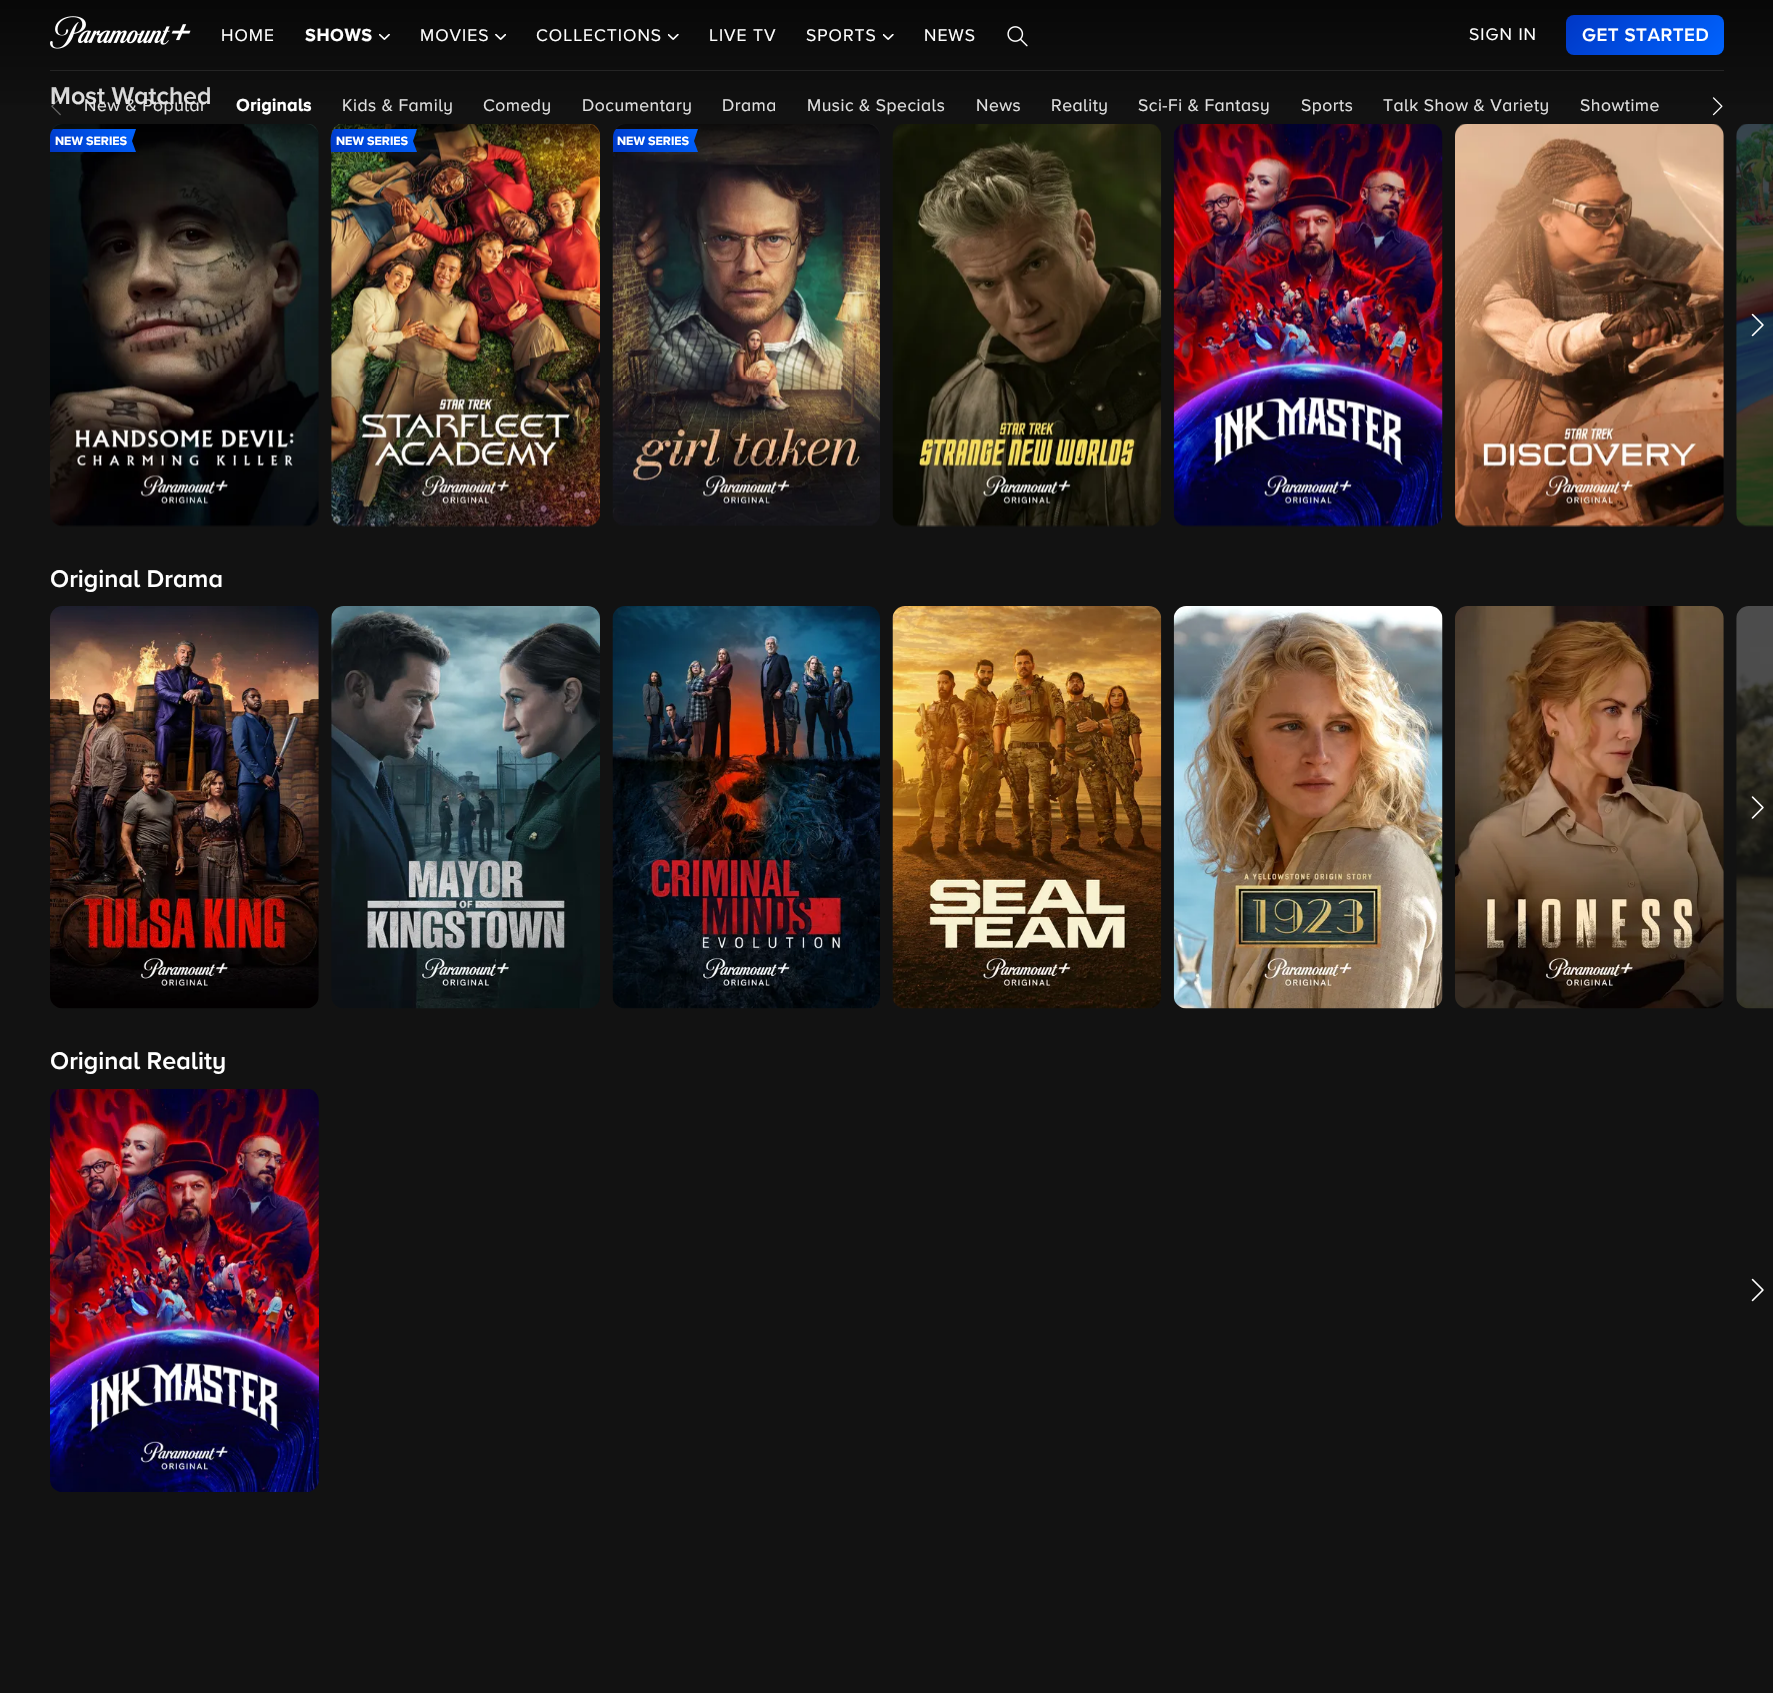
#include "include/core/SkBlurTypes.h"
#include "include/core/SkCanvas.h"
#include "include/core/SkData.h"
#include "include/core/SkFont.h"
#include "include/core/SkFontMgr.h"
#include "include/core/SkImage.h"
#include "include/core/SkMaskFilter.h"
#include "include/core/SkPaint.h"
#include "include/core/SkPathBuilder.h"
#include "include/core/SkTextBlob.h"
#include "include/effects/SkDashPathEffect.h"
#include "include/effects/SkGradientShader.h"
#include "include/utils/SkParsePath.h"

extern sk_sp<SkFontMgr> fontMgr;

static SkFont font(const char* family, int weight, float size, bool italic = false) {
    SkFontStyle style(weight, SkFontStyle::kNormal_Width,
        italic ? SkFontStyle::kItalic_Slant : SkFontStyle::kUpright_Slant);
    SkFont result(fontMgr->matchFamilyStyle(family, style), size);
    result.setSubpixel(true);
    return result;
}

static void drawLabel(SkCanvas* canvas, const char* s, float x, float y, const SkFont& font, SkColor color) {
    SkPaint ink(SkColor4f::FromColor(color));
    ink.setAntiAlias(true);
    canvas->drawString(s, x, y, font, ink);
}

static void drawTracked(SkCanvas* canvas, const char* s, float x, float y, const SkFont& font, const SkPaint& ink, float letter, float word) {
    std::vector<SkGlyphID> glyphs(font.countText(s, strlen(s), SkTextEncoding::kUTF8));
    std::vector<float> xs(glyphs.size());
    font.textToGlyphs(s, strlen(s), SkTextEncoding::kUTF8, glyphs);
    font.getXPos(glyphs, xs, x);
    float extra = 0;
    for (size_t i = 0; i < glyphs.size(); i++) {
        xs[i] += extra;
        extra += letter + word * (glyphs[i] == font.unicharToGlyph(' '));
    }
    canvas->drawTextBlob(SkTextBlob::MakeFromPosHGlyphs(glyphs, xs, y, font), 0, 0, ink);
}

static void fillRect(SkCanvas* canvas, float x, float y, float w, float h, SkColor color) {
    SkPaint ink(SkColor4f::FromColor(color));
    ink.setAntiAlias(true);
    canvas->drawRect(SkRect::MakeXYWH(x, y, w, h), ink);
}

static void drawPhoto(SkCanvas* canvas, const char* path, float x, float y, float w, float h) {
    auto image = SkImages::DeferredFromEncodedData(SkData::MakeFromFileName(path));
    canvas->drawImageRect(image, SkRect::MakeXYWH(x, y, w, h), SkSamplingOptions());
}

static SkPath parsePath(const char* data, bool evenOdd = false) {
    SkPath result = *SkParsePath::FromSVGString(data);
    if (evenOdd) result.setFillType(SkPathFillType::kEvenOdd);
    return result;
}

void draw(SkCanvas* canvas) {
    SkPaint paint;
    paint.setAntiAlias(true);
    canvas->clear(0xFF121212);
    SkFont font1 = font("Proxima Nova", 400, 25);
    drawLabel(canvas, "Most Watched", 50, 104, font1, 0xFFFFFFFF);
    {
        const SkColor colors[] = {0x99000000, 0x00000000};
        const float stops[] = {0, 1};
        const SkPoint ends[] = {{887, 0}, {887, 125}};
        paint.setShader(SkGradientShader::MakeLinear(ends, colors, stops, 2, SkTileMode::kClamp));
        paint.setAlpha(255);
    }
    canvas->drawRect(SkRect::MakeXYWH(0, 0, 1773, 105), paint);
    drawPhoto(canvas, "assets/img1.png", 50, 16, 141, 33);
    SkFont font2 = font("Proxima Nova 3", 400, 17.5f);
    paint.setShader(nullptr);
    paint.setColor(0xFFFFFFFF);
    drawTracked(canvas, "HOME", 221, 41, font2, paint, 1, 0);
    SkFont font3 = font("Proxima Nova", 700, 17.5f);
    drawTracked(canvas, "SHOWS", 305, 41, font3, paint, 1, 0);
    drawPhoto(canvas, "assets/img2.png", 379, 34, 11, 6);
    drawTracked(canvas, "MOVIES", 420, 41, font2, paint, 1, 0);
    drawPhoto(canvas, "assets/img3.png", 495, 34, 11, 6);
    drawTracked(canvas, "COLLECTIONS", 536, 41, font2, paint, 1, 0);
    drawPhoto(canvas, "assets/img4.png", 668, 34, 11, 6);
    drawTracked(canvas, "LIVE TV", 709, 41, font2, paint, 1, 0);
    drawTracked(canvas, "SPORTS", 806, 41, font2, paint, 1, 0);
    drawPhoto(canvas, "assets/img4.png", 883, 34, 11, 6);
    drawTracked(canvas, "NEWS", 924, 41, font2, paint, 1, 0);
    drawPhoto(canvas, "assets/img5.png", 1007, 26, 21, 21);
    drawTracked(canvas, "SIGN IN", 1469, 40, font2, paint, 1, 0);
    {
        const SkColor colors[] = {0xFF0037C5, 0xFF0064FF};
        const float stops[] = {0, 1};
        const SkPoint ends[] = {{1596, -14}, {1694, 84}};
        paint.setShader(SkGradientShader::MakeLinear(ends, colors, stops, 2, SkTileMode::kClamp));
        paint.setAlpha(255);
    }
    canvas->drawRoundRect(SkRect::MakeXYWH(1566, 15, 158, 40), 8, 8, paint);
    SkFont font4 = font("Proxima Nova", 400, 18.75f);
    paint.setShader(nullptr);
    paint.setColor(0xFFFFFFFF);
    drawTracked(canvas, "GET STARTED", 1582, 41, font4, paint, 0.5f, 0);
    fillRect(canvas, 50, 70, 1674, 1, 0xFF252525);
    drawPhoto(canvas, "assets/img6.png", 51, 97, 10, 19);
    paint.setColor(0xFFE0E0E0);
    drawTracked(canvas, "New & Popular", 84, 111, font2, paint, 0.5f, 0);
    paint.setColor(0xFFFFFFFF);
    drawTracked(canvas, "Originals", 236, 111, font3, paint, 0.5f, 0);
    paint.setColor(0xFFE0E0E0);
    drawTracked(canvas, "Kids & Family", 342, 111, font2, paint, 0.5f, 0);
    drawTracked(canvas, "Comedy", 483, 111, font2, paint, 0.5f, 0);
    drawTracked(canvas, "Documentary", 582, 111, font2, paint, 0.5f, 0);
    drawTracked(canvas, "Drama", 722, 111, font2, paint, 0.5f, 0);
    drawTracked(canvas, "Music & Specials", 807, 111, font2, paint, 0.5f, 0);
    drawTracked(canvas, "News", 976, 111, font2, paint, 0.5f, 0);
    drawTracked(canvas, "Reality", 1051, 111, font2, paint, 0.5f, 0);
    drawTracked(canvas, "Sci-Fi & Fantasy", 1138, 111, font2, paint, 0.5f, 0);
    drawTracked(canvas, "Sports", 1301, 111, font2, paint, 0.5f, 0);
    drawTracked(canvas, "Talk Show & Variety", 1383, 111, font2, paint, 0.5f, 0);
    drawTracked(canvas, "Showtime", 1580, 111, font2, paint, 0.5f, 0);
    drawPhoto(canvas, "assets/img7.png", 1712, 97, 11, 19);
    drawPhoto(canvas, "assets/img8.png", 50, 124, 269, 403);
    {
        const SkColor colors[] = {0x00000000, 0xA6000000};
        const float stops[] = {0, 1};
        const SkPoint ends[] = {{184, 158}, {184, 124}};
        paint.setShader(SkGradientShader::MakeLinear(ends, colors, stops, 2, SkTileMode::kClamp));
        paint.setAlpha(255);
    }
    canvas->drawPath(parsePath("M63 124H306C313 124 319 130 319 137V158H50V137C50 130 56 124 63 124Z"), paint);
    {
        const SkColor colors[] = {0xFF0064FF, 0xFF0037C5};
        const float stops[] = {0, 1};
        const SkPoint ends[] = {{121, 113}, {65, 168}};
        paint.setShader(SkGradientShader::MakeLinear(ends, colors, stops, 2, SkTileMode::kClamp));
        paint.setAlpha(255);
    }
    canvas->drawPath(parsePath("M50 137V152H136L132 141L136 129H53C51 131 50 134 50 137Z"), paint);
    SkFont font5 = font("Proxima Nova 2", 400, 12.5f);
    drawLabel(canvas, "NEW SERIES", 55, 145, font5, 0xFFFFFFFF);
    drawPhoto(canvas, "assets/img9.png", 331, 124, 269, 403);
    {
        const SkColor colors[] = {0x00000000, 0xA6000000};
        const float stops[] = {0, 1};
        const SkPoint ends[] = {{466, 158}, {466, 124}};
        paint.setShader(SkGradientShader::MakeLinear(ends, colors, stops, 2, SkTileMode::kClamp));
        paint.setAlpha(255);
    }
    canvas->drawPath(parsePath("M344 124H587C594 124 600 130 600 137V158H331V137C331 130 337 124 344 124Z"), paint);
    {
        const SkColor colors[] = {0xFF0064FF, 0xFF0037C5};
        const float stops[] = {0, 1};
        const SkPoint ends[] = {{402, 113}, {347, 168}};
        paint.setShader(SkGradientShader::MakeLinear(ends, colors, stops, 2, SkTileMode::kClamp));
        paint.setAlpha(255);
    }
    canvas->drawPath(parsePath("M417 129L413 141L417 152H331C331 146 329 135 334 129Z"), paint);
    drawLabel(canvas, "NEW SERIES", 336, 145, font5, 0xFFFFFFFF);
    drawPhoto(canvas, "assets/img10.png", 612, 124, 268, 402);
    {
        const SkColor colors[] = {0x00000000, 0xA6000000};
        const float stops[] = {0, 1};
        const SkPoint ends[] = {{746, 158}, {746, 124}};
        paint.setShader(SkGradientShader::MakeLinear(ends, colors, stops, 2, SkTileMode::kClamp));
        paint.setAlpha(255);
    }
    canvas->drawPath(parsePath("M626 124H867C874 124 880 130 880 137V158H613V137C613 130 619 124 626 124Z"), paint);
    {
        const SkColor colors[] = {0xFF0064FF, 0xFF0037C5};
        const float stops[] = {0, 1};
        const SkPoint ends[] = {{682, 114}, {628, 168}};
        paint.setShader(SkGradientShader::MakeLinear(ends, colors, stops, 2, SkTileMode::kClamp));
        paint.setAlpha(255);
    }
    canvas->drawPath(parsePath("M613 137C613 134 614 131 616 129H698L694 141L698 152H613Z"), paint);
    drawLabel(canvas, "NEW SERIES", 617, 145, font5, 0xFFFFFFFF);
    drawPhoto(canvas, "assets/img11.png", 892, 124, 270, 403);
    drawPhoto(canvas, "assets/img12.png", 1173, 124, 270, 403);
    drawPhoto(canvas, "assets/img13.png", 1455, 124, 269, 403);
    drawPhoto(canvas, "assets/img14.png", 1736, 124, 37, 403);
    drawPhoto(canvas, "assets/img15.png", 1751, 313, 13, 24);
    drawLabel(canvas, "Original Drama", 50, 587, font1, 0xFFFFFFFF);
    drawPhoto(canvas, "assets/img16.png", 50, 606, 269, 403);
    drawPhoto(canvas, "assets/img17.png", 331, 606, 269, 403);
    drawPhoto(canvas, "assets/img18.png", 612, 606, 268, 403);
    drawPhoto(canvas, "assets/img19.png", 892, 606, 270, 403);
    drawPhoto(canvas, "assets/img20.png", 1173, 606, 270, 403);
    drawPhoto(canvas, "assets/img21.png", 1455, 606, 269, 403);
    drawPhoto(canvas, "assets/img22.png", 1736, 606, 37, 403);
    drawPhoto(canvas, "assets/img23.png", 1751, 796, 13, 23);
    drawLabel(canvas, "Original Reality", 50, 1069, font1, 0xFFFFFFFF);
    drawPhoto(canvas, "assets/img24.png", 50, 1089, 269, 403);
    drawPhoto(canvas, "assets/img25.png", 1751, 1278, 13, 24);
}
